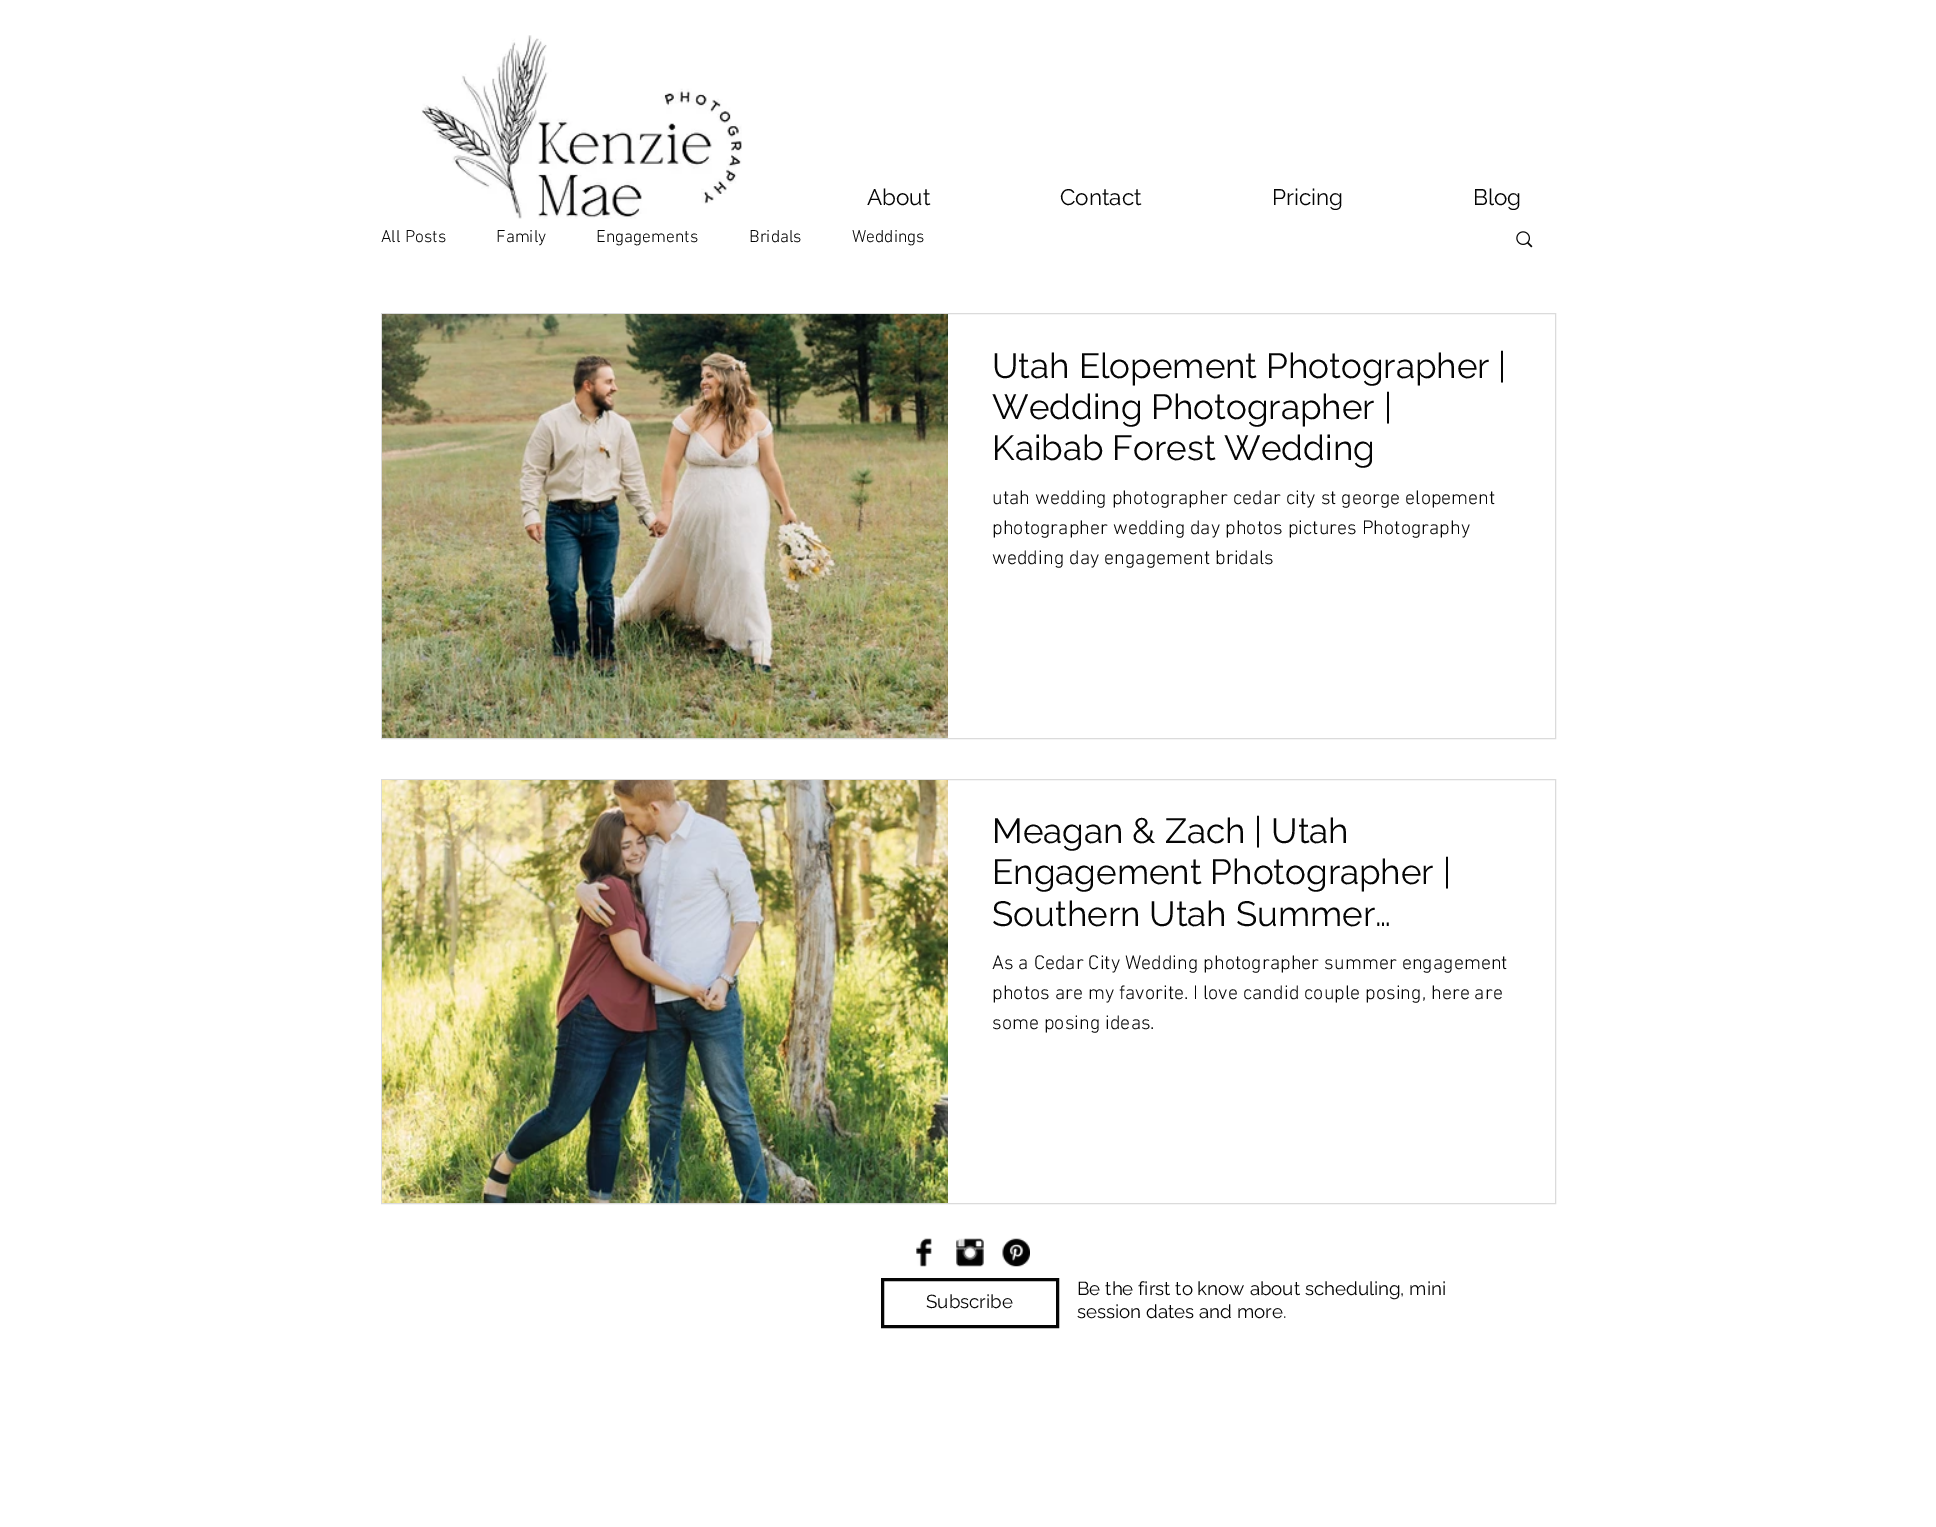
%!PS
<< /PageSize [1936 1527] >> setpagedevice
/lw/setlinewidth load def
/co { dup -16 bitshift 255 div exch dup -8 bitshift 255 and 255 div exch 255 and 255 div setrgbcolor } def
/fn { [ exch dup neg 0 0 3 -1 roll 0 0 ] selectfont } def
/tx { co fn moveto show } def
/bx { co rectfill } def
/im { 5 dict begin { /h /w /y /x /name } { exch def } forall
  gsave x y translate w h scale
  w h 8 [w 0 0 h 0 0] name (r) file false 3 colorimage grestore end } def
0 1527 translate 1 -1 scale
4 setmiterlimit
0 0 1936 1527 16#FFFFFF bx
(media/1.raw) 421 35 321 184 im
(media/2.raw) 1516 231 17 17 im
16#DBDBDB co
381.5 313.5 1174 425 rectstroke
(media/3.raw) 382 314 566 424 im
381.5 779.5 1174 424 rectstroke
(media/4.raw) 382 780 566 423 im
(media/5.raw) 916 1238 16 29 im
(media/6.raw) 956 1238 28 29 im
(media/7.raw) 1002 1238 28 29 im
16#050505 co
3 lw
882.5 1279.5 175 47 rectstroke
(About) 867 205 /Raleway-Regular 22.5 16#050505 tx
(Contact) 1060 205 /Raleway-Regular 22.5 16#050505 tx
(Pricing) 1272 205 /Raleway-Regular 22.5 16#050505 tx
(Blog) 1473 205 /Raleway-Regular 22.5 16#050505 tx
(All Posts) 381 242 /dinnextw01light-Light 17.5 16#050505 tx
(Family) 496 242 /dinnextw01light-Light 17.5 16#050505 tx
(Engagements) 596 242 /dinnextw01light-Light 17.5 16#050505 tx
(Bridals) 749 242 /dinnextw01light-Light 17.5 16#050505 tx
(Weddings) 852 242 /dinnextw01light-Light 17.5 16#050505 tx
(Utah Elopement Photographer |) 992 378 /Raleway-Regular 35 16#050505 tx
(Wedding Photographer |) 992 419 /Raleway-Regular 35 16#050505 tx
(Kaibab Forest Wedding) 992 460 /Raleway-Regular 35 16#050505 tx
(utah wedding photographer cedar city st george elopement) 992 504 /dinnextw01light-Light 20 16#050505 tx
(photographer wedding day photos pictures Photography) 992 534 /dinnextw01light-Light 20 16#050505 tx
(wedding day engagement bridals) 992 564 /dinnextw01light-Light 20 16#050505 tx
(Meagan & Zach | Utah) 992 843 /Raleway-Regular 35 16#050505 tx
(Engagement Photographer |) 992 884 /Raleway-Regular 35 16#050505 tx
(Southern Utah Summer…) 992 926 /Raleway-Regular 35 16#050505 tx
(As a Cedar City Wedding photographer summer engagement) 992 969 /dinnextw01light-Light 20 16#050505 tx
(photos are my favorite. I love candid couple posing, here are) 992 999 /dinnextw01light-Light 20 16#050505 tx
(some posing ideas.) 992 1029 /dinnextw01light-Light 20 16#050505 tx
(Subscribe) 926 1308 /Raleway-Regular 18.75 16#050505 tx
(Be the first to know about scheduling, mini) 1077 1295 /Raleway-Regular 18.75 16#050505 tx
(session dates and more.) 1077 1318 /Raleway-Regular 18.75 16#050505 tx
showpage
